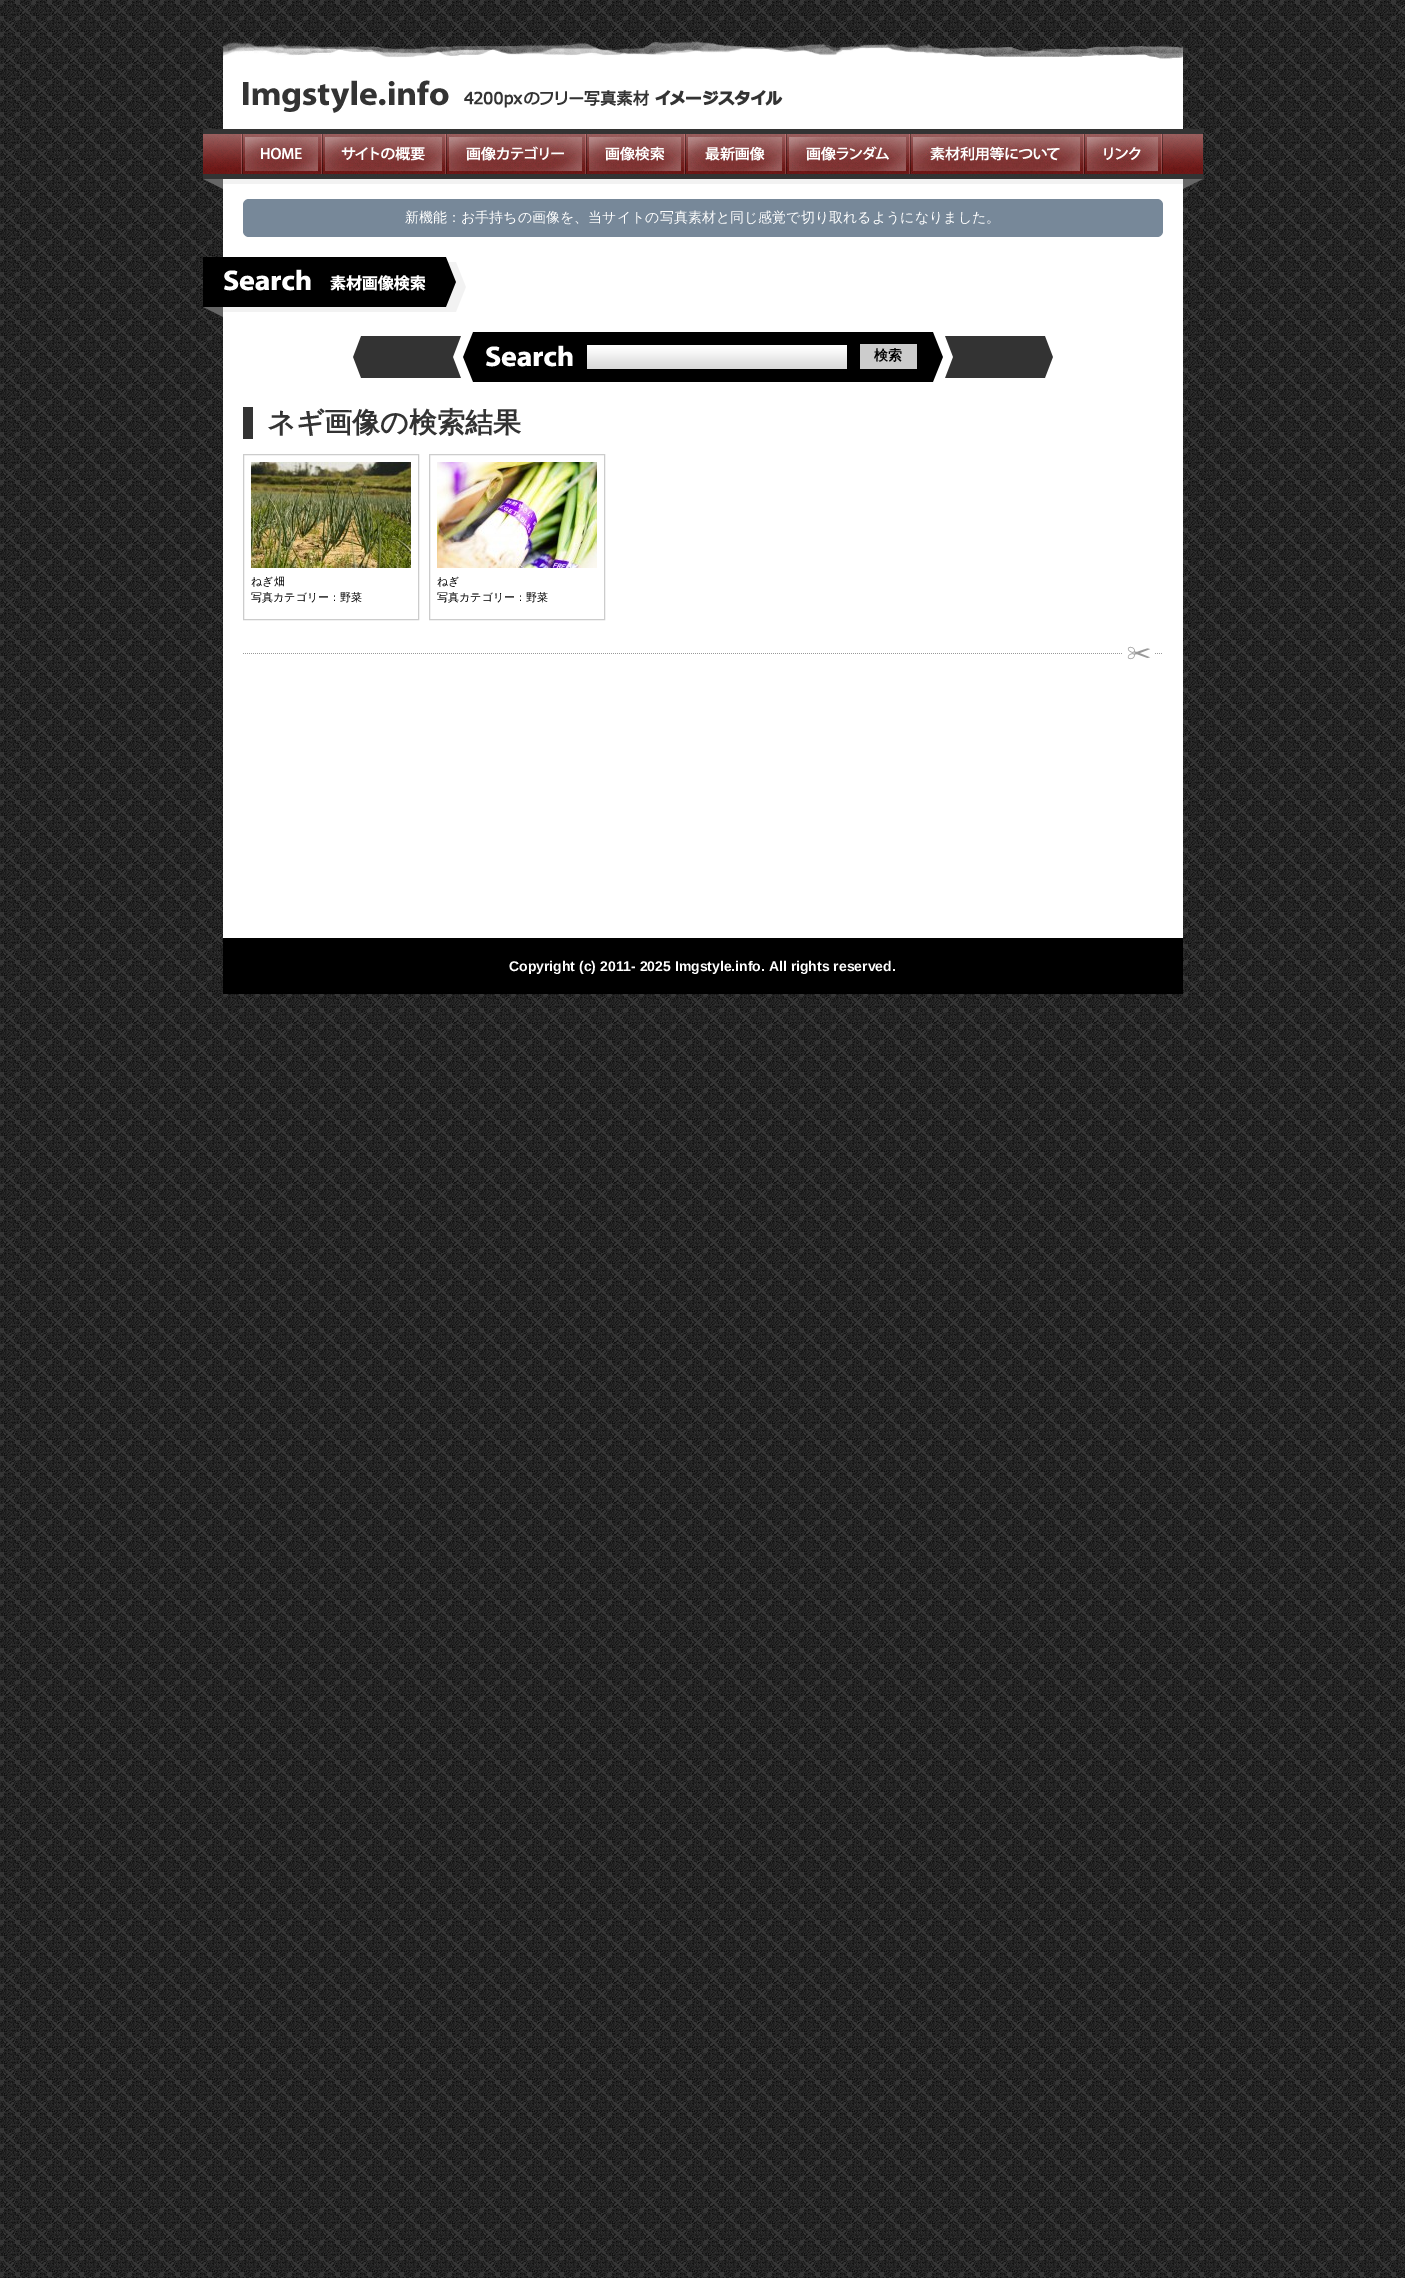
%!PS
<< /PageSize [1405 2278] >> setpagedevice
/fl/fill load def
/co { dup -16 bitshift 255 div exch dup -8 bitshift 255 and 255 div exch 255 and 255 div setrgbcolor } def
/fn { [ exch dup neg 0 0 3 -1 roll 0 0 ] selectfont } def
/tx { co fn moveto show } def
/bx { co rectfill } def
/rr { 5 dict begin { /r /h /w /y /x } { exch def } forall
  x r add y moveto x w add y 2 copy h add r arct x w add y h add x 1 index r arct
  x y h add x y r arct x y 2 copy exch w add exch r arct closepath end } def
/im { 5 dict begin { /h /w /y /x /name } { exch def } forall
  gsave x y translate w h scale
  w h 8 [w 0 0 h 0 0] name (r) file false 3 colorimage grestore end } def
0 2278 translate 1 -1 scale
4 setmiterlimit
0 0 1405 2278 16#FFFFFF bx
(media/1.raw) 0 0 1405 2278 im
223 60 960 878 16#FFFFFF bx
(media/2.raw) 223 41 960 19 im
(media/3.raw) 243 80 540 33 im
(media/4.raw) 203 129 1000 60 im
(media/5.raw) 241 133 80 43 im
(media/6.raw) 321 133 124 44 im
(media/7.raw) 445 129 140 45 im
(media/8.raw) 585 129 99 48 im
(media/9.raw) 684 133 101 41 im
(media/10.raw) 785 134 124 43 im
(media/11.raw) 909 132 174 45 im
(media/12.raw) 1083 129 81 48 im
16#778899 co
243 199 920 38 6 rr fl
(media/13.raw) 203 257 263 60 im
(media/14.raw) 353 332 700 50 im
860 344 57 25 16#CCCCCC bx
243 407 10 32 16#333333 bx
16#CCCCCC co
243.5 454.5 175 165 rectstroke
(media/15.raw) 251 462 160 106 im
429.5 454.5 175 165 rectstroke
(media/16.raw) 437 462 160 106 im
(media/17.raw) 243 646 919 14 im
223 938 960 56 16#000000 bx
(新機能：お手持ちの画像を、当サイトの写真素材と同じ感覚で切り取れるようになりました。) 405 222 /WenQuanYiZenHei-Medium 14 16#FFFFFF tx
(検索) 874 360 /WenQuanYiZenHei-Bold 14 16#000000 tx
(ネギ画像の検索結果) 267 432 /WenQuanYiZenHei-Bold 28 16#333333 tx
(ねぎ畑) 251 585 /WenQuanYiZenHei-Medium 11 16#000000 tx
(写真カテゴリー：野菜) 251 601 /WenQuanYiZenHei-Medium 11 16#000000 tx
(ねぎ) 437 585 /WenQuanYiZenHei-Medium 11 16#000000 tx
(写真カテゴリー：野菜) 437 601 /WenQuanYiZenHei-Medium 11 16#000000 tx
(Copyright \(c\) 2011- 2025 Imgstyle.info. All rights reserved.) 509 971 /LiberationSans-Bold 14 16#FFFFFF tx
showpage
